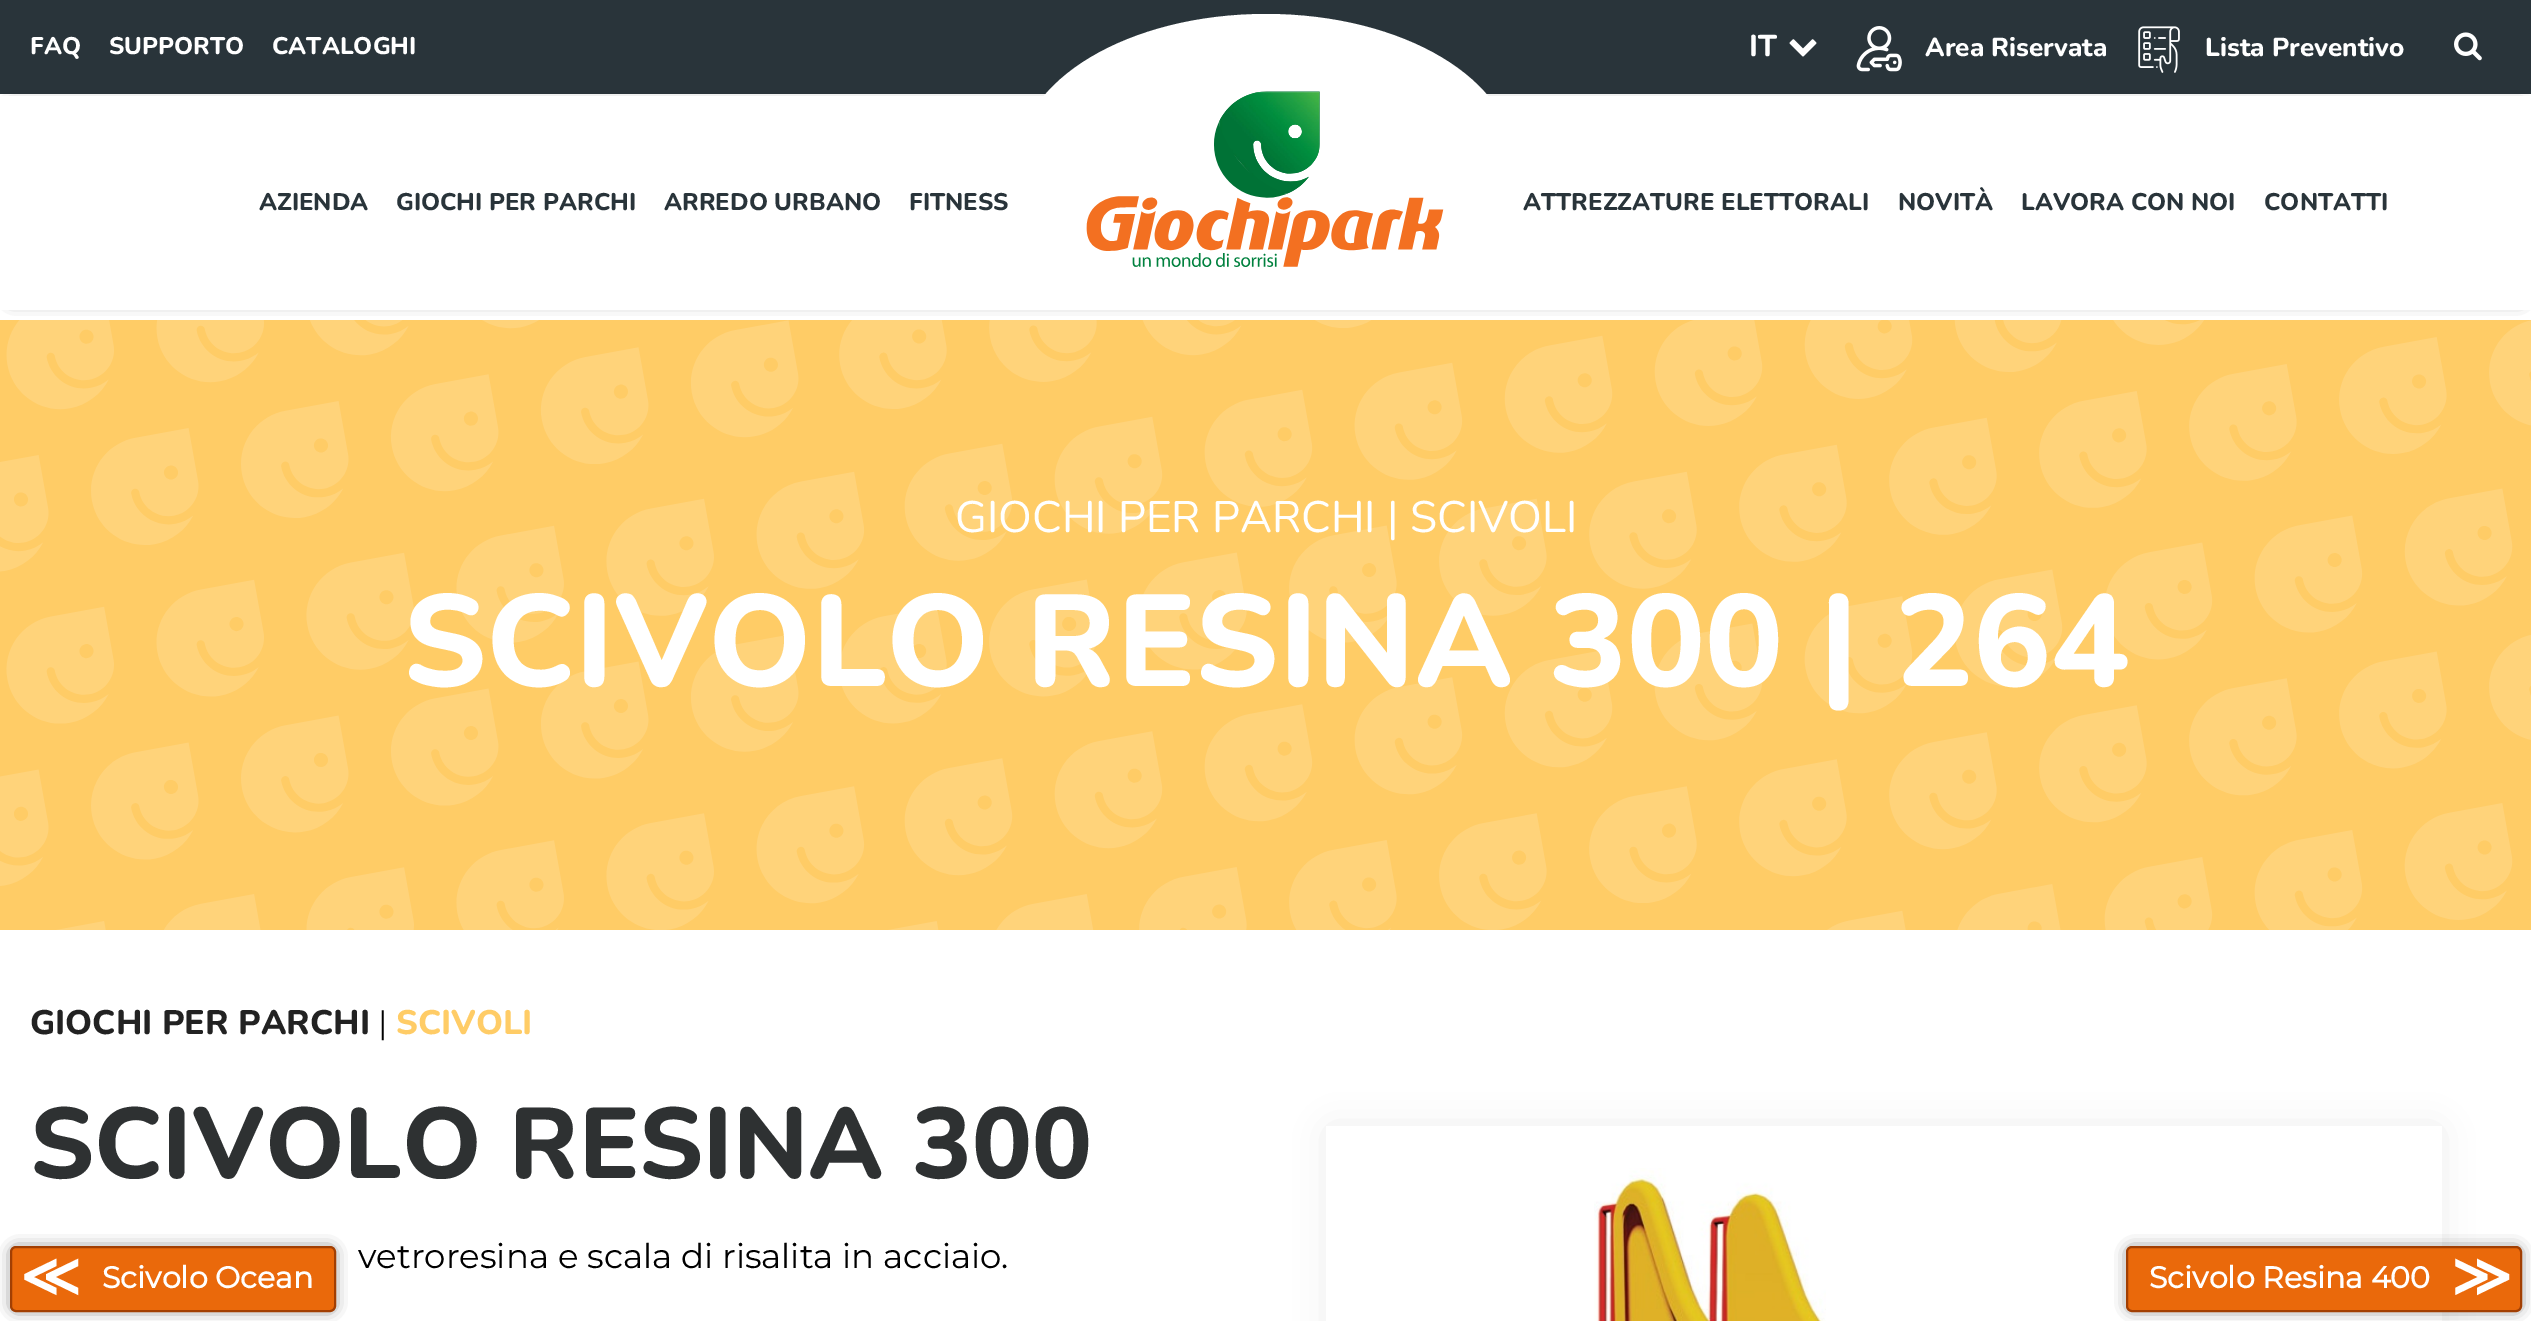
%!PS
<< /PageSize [2531 1321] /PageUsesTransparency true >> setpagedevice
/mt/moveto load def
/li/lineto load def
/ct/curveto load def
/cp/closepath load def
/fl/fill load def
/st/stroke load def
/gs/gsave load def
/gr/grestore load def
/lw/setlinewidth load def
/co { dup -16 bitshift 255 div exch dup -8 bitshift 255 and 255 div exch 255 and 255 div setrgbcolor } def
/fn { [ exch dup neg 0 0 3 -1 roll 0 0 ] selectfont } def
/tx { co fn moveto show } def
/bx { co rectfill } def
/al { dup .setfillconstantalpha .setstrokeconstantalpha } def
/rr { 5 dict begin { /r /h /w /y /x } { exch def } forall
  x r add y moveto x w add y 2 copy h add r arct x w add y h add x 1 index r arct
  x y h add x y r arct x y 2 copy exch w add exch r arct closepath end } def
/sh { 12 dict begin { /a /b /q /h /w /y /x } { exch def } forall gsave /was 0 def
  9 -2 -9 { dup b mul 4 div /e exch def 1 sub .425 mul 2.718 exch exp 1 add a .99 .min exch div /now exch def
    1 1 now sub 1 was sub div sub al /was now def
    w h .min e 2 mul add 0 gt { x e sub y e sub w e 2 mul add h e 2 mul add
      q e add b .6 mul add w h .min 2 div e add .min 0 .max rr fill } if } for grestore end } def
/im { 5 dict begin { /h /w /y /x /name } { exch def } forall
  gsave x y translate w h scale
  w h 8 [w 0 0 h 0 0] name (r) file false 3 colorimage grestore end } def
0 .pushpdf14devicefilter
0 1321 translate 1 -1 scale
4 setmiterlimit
0 0 2531 1321 16#FFFFFF bx
0 0 2531 94 16#29343A bx
(media/1.raw) 1789 39 28 18 im
(media/2.raw) 1856 26 46 46 im
(media/3.raw) 2138 26 42 47 im
(media/4.raw) 2454 32 28 29 im
0 320 2531 610 16#FFCC66 bx
(media/6.raw) 0 320 2531 610 im
gs
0 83 mt 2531 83 li 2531 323 li 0 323 li cp 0 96 mt 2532 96 li 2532 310 li 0 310 li cp eoclip newpath
16#222222 co
12 108 2508 190 0 8 1 sh
gr
16#FFFFFF co
1266 14 mt 1403 14 1514 80 1514 162 ct 1514 310 li 1018 310 li 1018 162 li 1018 80 1129 14 1266 14 ct cp fl
(media/5.raw) 1086 91 358 176 im
gs
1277 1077 mt 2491 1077 li 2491 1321 li 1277 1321 li cp 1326 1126 mt 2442 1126 li 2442 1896 li 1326 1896 li cp eoclip newpath
16#E3E3E3 co
1332 1132 1104 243 0 18 1 sh
gr
(media/7.raw) 1594 1168 232 153 im
16#000000 co
16 1252 314 54 0 8 1 sh
16#EA690B co
11 1247 324 64 5 rr gs fl gr
16#A23F03 co
2 lw
st
16#000000 co
2132 1252 384 54 0 8 1 sh
16#EA690B co
2127 1247 394 64 5 rr gs fl gr
16#A23F03 co
st
(FAQ) 30 54 /Nunito-ExtraBold 24 16#FFFFFF tx
(SUPPORTO) 109 54 /Nunito-ExtraBold 24 16#FFFFFF tx
(CATALOGHI) 272 54 /Nunito-ExtraBold 24 16#FFFFFF tx
(IT) 1749 56 /Nunito-ExtraBold 30 16#FFFFFF tx
(Area Riservata) 1925 56 /Nunito-ExtraBold 26 16#FFFFFF tx
(Lista Preventivo) 2205 56 /Nunito-ExtraBold 26 16#FFFFFF tx
(AZIENDA) 259 210 /Nunito-ExtraBold 24 16#29343A tx
(GIOCHI PER PARCHI) 396 210 /Nunito-ExtraBold 24 16#29343A tx
(ARREDO URBANO) 664 210 /Nunito-ExtraBold 24 16#29343A tx
(FITNESS) 909 210 /Nunito-ExtraBold 24 16#29343A tx
(ATTREZZATURE ELETTORALI) 1523 210 /Nunito-ExtraBold 24 16#29343A tx
(NOVITÀ) 1898 210 /Nunito-ExtraBold 24 16#29343A tx
(LAVORA CON NOI) 2021 210 /Nunito-ExtraBold 24 16#29343A tx
(CONTATTI) 2264 210 /Nunito-ExtraBold 24 16#29343A tx
(GIOCHI PER PARCHI | SCIVOLI) 955 532 /Nunito-Regular 44 16#FFFFFF tx
(SCIVOLO RESINA 300 | 264) 403 686 /Nunito-ExtraBold 130 16#FFFFFF tx
(GIOCHI PER PARCHI) 30 1034 /Nunito-ExtraBold 34 16#222222 tx
(|) 378 1034 /Montserrat-Regular 32 16#000000 tx
(SCIVOLI) 396 1034 /Nunito-ExtraBold 34 16#FFCC66 tx
(SCIVOLO RESINA 300) 30 1178 /Nunito-ExtraBold 100 16#2E3132 tx
(vetroresina e scala di risalita in acciaio.) 358 1268 /Montserrat-Regular 34 16#000000 tx
(≪) 20 1296 /DejaVuSans-Bold 58 16#FFFFFF tx
(Scivolo Ocean) 102 1288 /Montserrat-Bold 30 16#FFFFFF tx
(Scivolo Resina 400) 2149 1288 /Montserrat-Bold 30 16#FFFFFF tx
(≫) 2451 1296 /DejaVuSans-Bold 58 16#FFFFFF tx
.poppdf14devicefilter showpage
